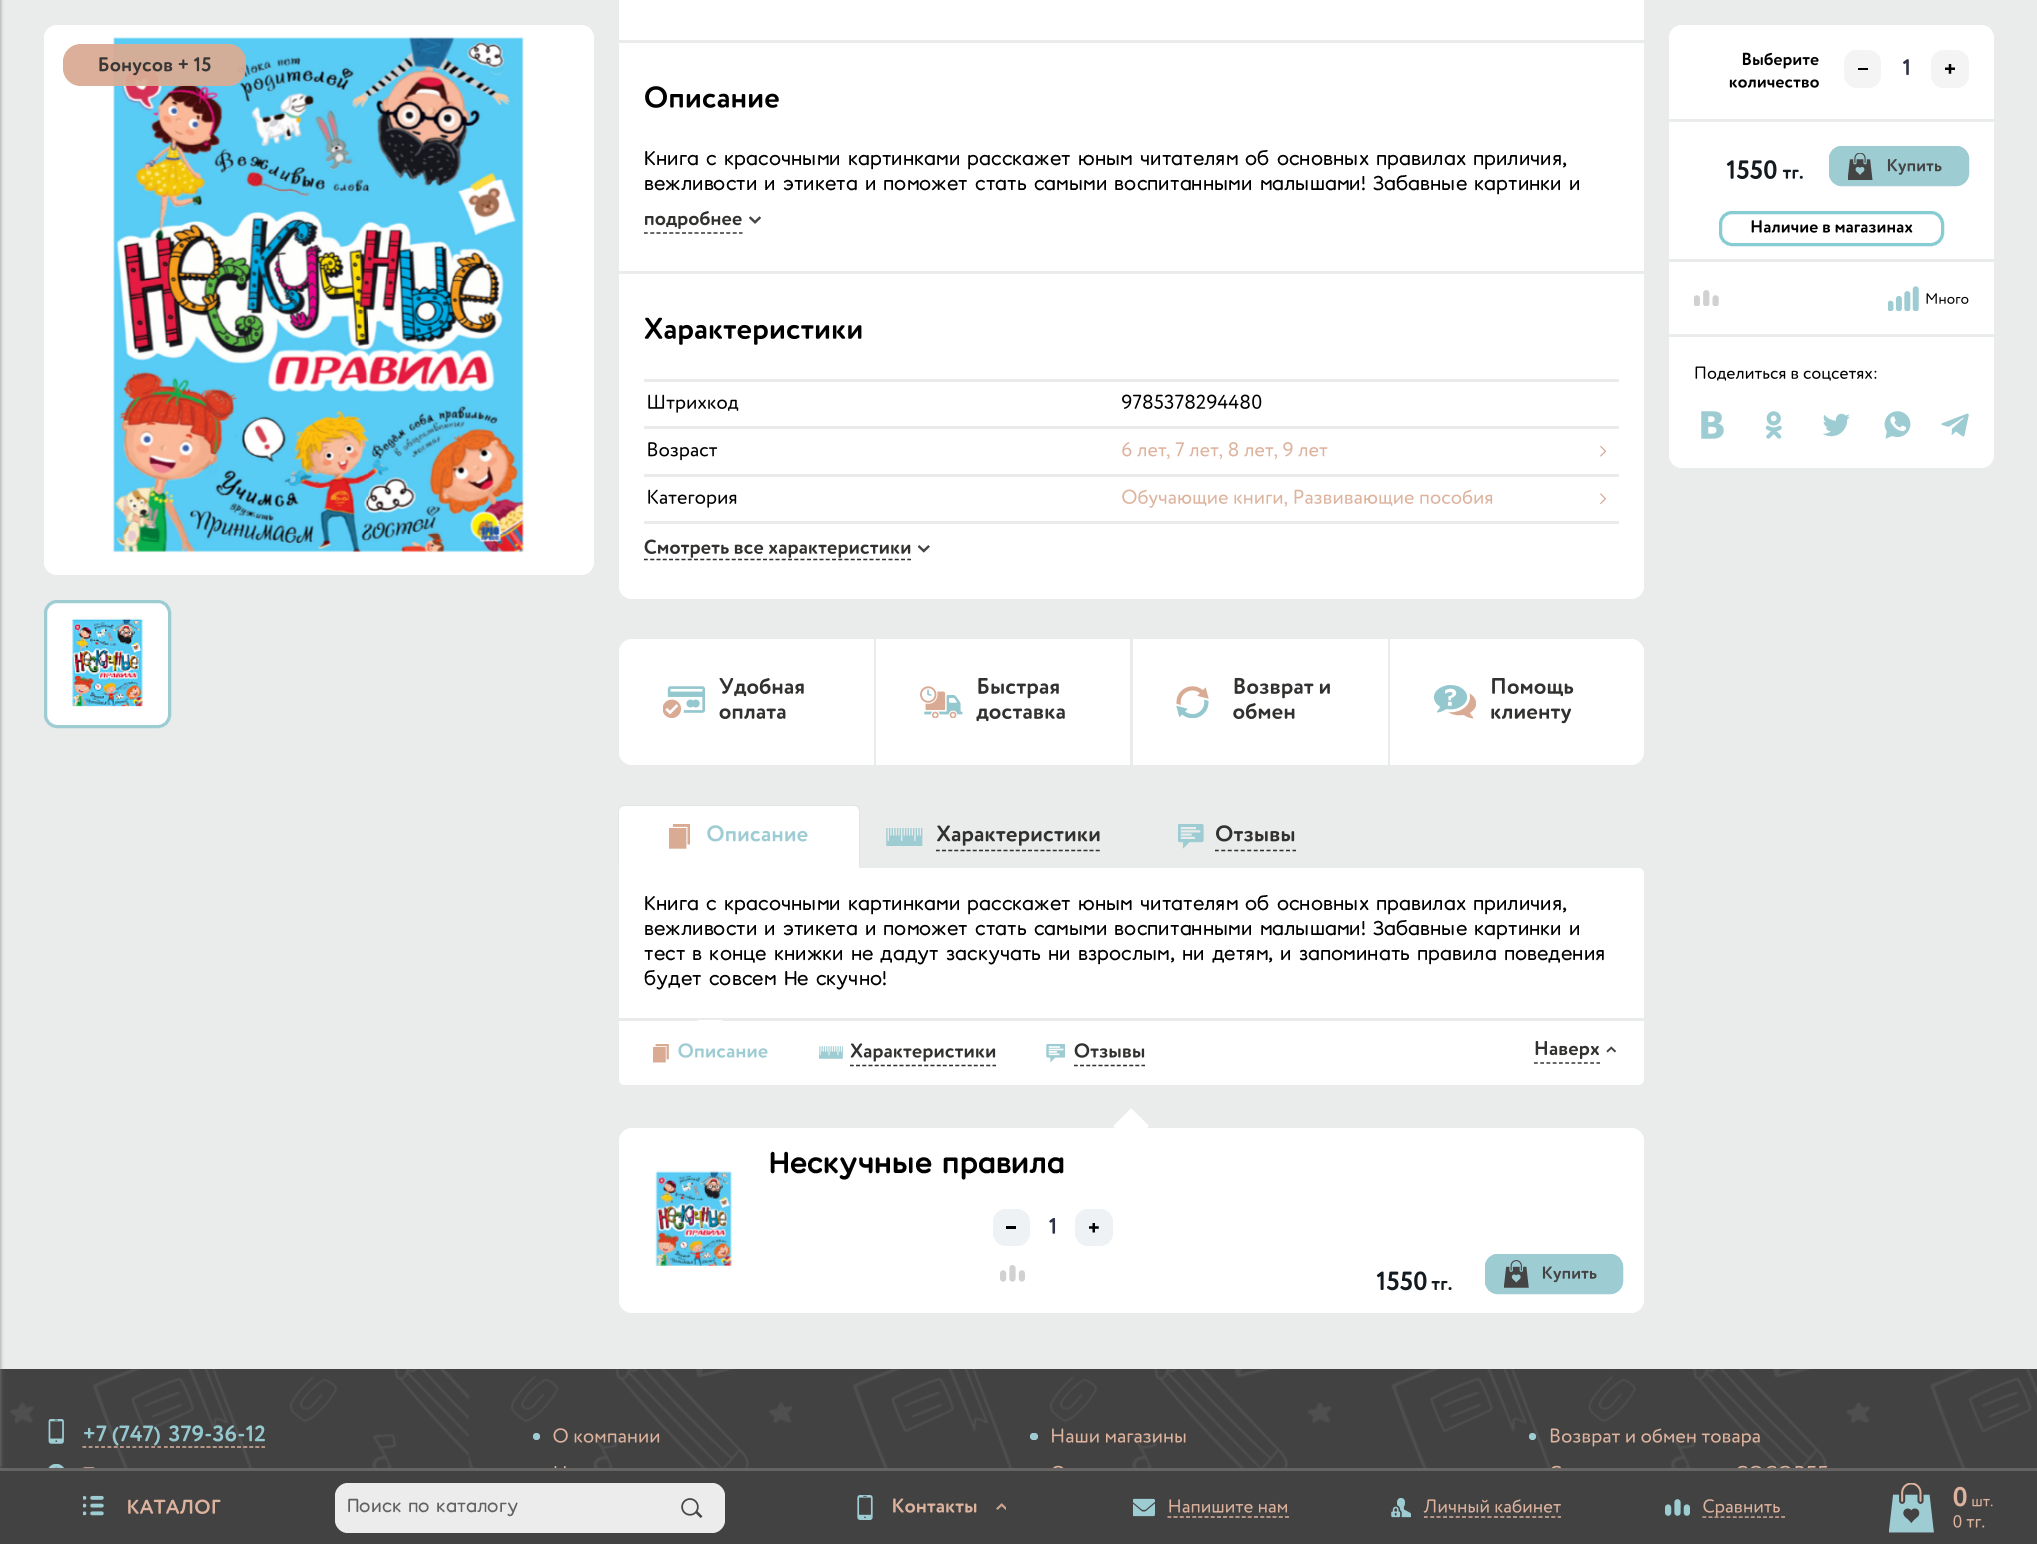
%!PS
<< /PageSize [2037 1544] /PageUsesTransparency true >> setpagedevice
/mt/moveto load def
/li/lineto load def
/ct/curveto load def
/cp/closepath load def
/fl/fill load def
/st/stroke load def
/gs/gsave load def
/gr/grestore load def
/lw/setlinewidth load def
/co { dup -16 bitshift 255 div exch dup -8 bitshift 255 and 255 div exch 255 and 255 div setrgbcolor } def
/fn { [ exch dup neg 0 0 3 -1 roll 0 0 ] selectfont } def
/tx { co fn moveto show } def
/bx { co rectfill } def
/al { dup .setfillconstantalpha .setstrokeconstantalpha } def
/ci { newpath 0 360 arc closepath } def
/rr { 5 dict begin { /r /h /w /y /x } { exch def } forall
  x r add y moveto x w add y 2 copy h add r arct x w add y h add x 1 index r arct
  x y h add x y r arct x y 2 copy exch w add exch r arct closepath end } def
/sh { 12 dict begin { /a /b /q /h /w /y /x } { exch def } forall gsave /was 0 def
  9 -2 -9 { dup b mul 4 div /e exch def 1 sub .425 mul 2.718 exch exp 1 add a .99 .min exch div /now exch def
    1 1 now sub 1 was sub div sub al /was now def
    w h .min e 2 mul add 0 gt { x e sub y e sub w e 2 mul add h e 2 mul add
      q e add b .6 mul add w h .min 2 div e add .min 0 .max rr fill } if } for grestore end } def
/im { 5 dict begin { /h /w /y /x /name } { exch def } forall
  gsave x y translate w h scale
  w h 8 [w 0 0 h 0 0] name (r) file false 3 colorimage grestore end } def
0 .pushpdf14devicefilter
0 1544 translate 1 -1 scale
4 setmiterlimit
0 0 2037 1544 16#EAECEB bx
0 1369 2037 99 16#424242 bx
0 1471 2037 73 16#424242 bx
0 1468 2037 3 16#656463 bx
16#808080 co
-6 0 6 1466 0 2 1 sh
16#FFFFFF co
44 25 550 550 13 rr fl
(media/1.raw) 113 36 411 517 im
0.95 al
16#D9AB93 co
63 44 183 42 18 rr fl
1 al
(media/2.raw) 99 57 112 19 im
16#FFFFFF co
45.5 601.5 124 125 11.5 rr gs fl gr
16#9ECCD3 co
3 lw
st
(media/3.raw) 72 617 71 90 im
16#FFFFFF co
619 -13 1025 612 13 rr fl
619 40 1025 3 16#EAECEB bx
(media/4.raw) 645 86 134 22 im
619 271 1025 3 16#EAECEB bx
16#313130 co
1.2 lw
[3.75 2.59] 0 setdash
644 233 mt 742.5 233 li st
(media/5.raw) 645 211 97 18 im
(media/6.raw) 749 216 12 8 im
(media/7.raw) 644 317 218 28 im
644 379 975 3 16#EAECEB bx
(media/8.raw) 648 394 91 19 im
(media/9.raw) 1122 394 140 15 im
644 426 975 3 16#EAECEB bx
(media/10.raw) 648 442 70 19 im
(media/11.raw) 1122 442 45 15 im
(media/12.raw) 1167 454 3 5 im
(media/13.raw) 1175 442 44 15 im
(media/14.raw) 1219 454 4 5 im
(media/15.raw) 1228 442 46 15 im
(media/14.raw) 1274 454 4 5 im
(media/16.raw) 1283 442 45 15 im
(media/17.raw) 1600 446 6 11 im
644 474 975 3 16#EAECEB bx
644 521 975 3 16#EAECEB bx
(media/18.raw) 648 489 89 19 im
(media/19.raw) 1122 489 161 19 im
(media/20.raw) 1284 501 4 6 im
(media/21.raw) 1294 489 199 17 im
(media/22.raw) 1600 493 6 11 im
(media/23.raw) 644 539 267 19 im
(media/24.raw) 918 545 12 8 im
16#313130 co
[3.75 2.52] 0 setdash
644 559.5 mt 911 559.5 li st
16#FFFFFF co
1669 25 325 443 13 rr fl
1669 119 325 3 16#EAECEB bx
(media/25.raw) 1742 52 77 17 im
(media/26.raw) 1729 79 90 9 im
16#F4F4F4 co
1844 50 37 38 13 rr fl
1858 68 10 2 16#000000 bx
(media/27.raw) 1903 59 6 16 im
16#F4F4F4 co
1931 50 38 38 13 rr fl
(media/28.raw) 1945 64 10 10 im
(media/29.raw) 1726 160 51 19 im
(media/30.raw) 1782 169 21 10 im
16#9ECCD3 co
1829 146 140 40 13 rr fl
(media/31.raw) 1848 153 25 27 im
3 lw
[] 0 setdash
1830.5 147.5 137 37 11.5 rr st
(media/32.raw) 1887 159 55 16 im
16#86CCD3 co
1720.5 212.5 222 32 11.5 rr st
(media/33.raw) 1751 220 162 13 im
1669 259 325 3 16#EAECEB bx
1669 334 325 3 16#EAECEB bx
(media/34.raw) 1694 290 25 16 im
(media/35.raw) 1888 286 31 25 im
(media/36.raw) 1926 293 43 11 im
(media/37.raw) 1695 366 182 15 im
(media/38.raw) 1701 411 23 28 im
(media/39.raw) 1765 411 17 28 im
(media/40.raw) 1823 413 27 24 im
(media/41.raw) 1884 411 27 28 im
(media/42.raw) 1941 413 28 24 im
16#FFFFFF co
632 639 mt 874 639 li 874 765 li 632 765 li 625 765 619 759 619 752 ct 619 652 li 619 645 625 639 632 639 ct cp fl
(media/43.raw) 663 686 42 32 im
(media/44.raw) 719 678 85 19 im
(media/45.raw) 719 708 67 11 im
876 639 254 126 16#FFFFFF bx
(media/46.raw) 920 686 43 32 im
(media/47.raw) 978 678 81 21 im
(media/48.raw) 976 708 89 14 im
1133 639 255 126 16#FFFFFF bx
(media/49.raw) 1176 686 33 32 im
(media/50.raw) 1234 677 96 22 im
(media/51.raw) 1233 703 62 16 im
1390 639 mt 1631 639 li 1638 639 1644 645 1644 652 ct 1644 752 li 1644 759 1638 765 1631 765 ct 1390 765 li cp fl
(media/52.raw) 1434 685 42 34 im
(media/53.raw) 1492 678 82 19 im
(media/54.raw) 1491 708 81 16 im
619 868 mt 1638 868 li 1641.5 868 1644 870.5 1644 874 ct 1644 1018 li 619 1018 li cp fl
619 866 240 2 16#FFFFFF bx
624 806 mt 854 806 li 857 806 859 808 859 811 ct 859 866 li 619 866 li 619 811 li 619 808 621 806 624 806 ct cp fl
(media/55.raw) 669 824 21 25 im
16#E4E4E4 co
624 805 mt 854 805 li 857 805 860 808 860 811 ct 860 866 li 618 866 li 618 811 li 618 808 620 805 624 805 ct cp 624 806 mt 854 806 li 857 806 859 808 859 811 ct 859 866 li 619 866 li 619 811 li 619 808 621 806 624 806 ct cp eofill
(media/56.raw) 707 825 101 17 im
(media/57.raw) 886 828 37 18 im
16#313130 co
1.2 lw
[3.75 2.4] 0 setdash
936 850.5 mt 1100 850.5 li st
(media/58.raw) 937 825 163 21 im
(media/59.raw) 1178 824 26 25 im
[3.75 2.71] 0 setdash
1215 850.5 mt 1296 850.5 li st
(media/60.raw) 1216 825 79 17 im
16#FFFFFF co
619 1018 mt 1644 1018 li 1644 1079 li 1644 1082.5 1641.5 1085 1638 1085 ct 625 1085 li 621.5 1085 619 1082.5 619 1079 ct cp fl
619 1018 1025 3 16#EAECEB bx
(media/61.raw) 653 1044 16 19 im
16#FFFFFF co
697.5 1020 mt 722.5 1020 li 710 1032.5 li cp fl
(media/62.raw) 678 1043 90 15 im
(media/63.raw) 819 1046 24 13 im
16#313130 co
[3.75 2.45] 0 setdash
850 1065.5 mt 996 1065.5 li st
(media/64.raw) 850 1043 146 19 im
(media/65.raw) 1046 1044 19 19 im
[3.75 2.39] 0 setdash
1074 1065.5 mt 1145 1065.5 li st
(media/66.raw) 1074 1043 71 15 im
[3.75 2.5] 0 setdash
1534 1063 mt 1600 1063 li st
(media/67.raw) 1535 1041 64 18 im
(media/68.raw) 1606 1046 10 7 im
16#FFFFFF co
619 1128 1025 185 13 rr fl
1131 1108.5 mt 1149 1126 li 1131 1144 li 1113.5 1126 li cp fl
(media/69.raw) 655 1170 77 96 im
16#EFF2F4 co
993 1209 37 37 13 rr fl
1006 1226 10 3 16#000000 bx
(media/70.raw) 1049 1217 7 17 im
16#EFF2F4 co
1075 1209 38 37 13 rr fl
(media/71.raw) 1089 1223 10 10 im
(media/72.raw) 1000 1265 25 17 im
(media/73.raw) 1376 1271 51 20 im
(media/74.raw) 1431 1281 21 10 im
16#9ECCD3 co
1485 1254 138 40 13 rr fl
(media/75.raw) 1504 1260 25 28 im
3 lw
[] 0 setdash
1486.5 1255.5 135 37 11.5 rr st
(media/76.raw) 1542 1266 55 17 im
(media/77.raw) 10 1369 2027 99 im
(media/78.raw) 48 1419 16 25 im
(media/79.raw) 84 1425 76 21 im
16#DDB39E co
1.2 lw
[3.75 2.5] 0 setdash
82.5 1447 mt 161 1447 li st
(media/80.raw) 169 1425 96 17 im
[3.75 2.35] 0 setdash
164 1447 mt 265 1447 li st
(media/81.raw) 48 1464 16 4 im
(media/82.raw) 83 1467 12 1 im
16#9ECCD3 co
536.5 1436.5 3.5 ci fl
(media/83.raw) 553 1428 107 15 im
1030 1433 8 7 3.5 rr fl
(media/84.raw) 1052 1428 134 15 im
1532.5 1436.5 3.5 ci fl
(media/85.raw) 1550 1428 210 19 im
(media/86.raw) 554 1466 12 2 im
(media/87.raw) 1053 1465 11 3 im
(media/88.raw) 1551 1465 277 3 im
(media/89.raw) 83 1495 21 21 im
(media/90.raw) 128 1499 93 15 im
16#ECECEC co
348 1483 mt 650 1483 li 650 1533 li 348 1533 li 341 1533 335 1527 335 1520 ct 335 1496 li 335 1489 341 1483 348 1483 ct cp fl
650 1483 mt 712 1483 li 719 1483 725 1489 725 1496 ct 725 1520 li 725 1527 719 1533 712 1533 ct 650 1533 li cp fl
(media/91.raw) 681 1498 22 20 im
(media/92.raw) 857 1495 16 25 im
(media/93.raw) 893 1498 84 15 im
(media/94.raw) 996 1503 10 7 im
(media/95.raw) 1133 1498 22 19 im
16#DDB39E co
[3.75 2.44] 0 setdash
1167.5 1517 mt 1289 1517 li st
(media/96.raw) 1169 1499 118 14 im
(media/97.raw) 1391 1498 20 20 im
[3.75 2.62] 0 setdash
1424 1517 mt 1561 1517 li st
(media/98.raw) 1423 1499 138 14 im
(media/99.raw) 1665 1499 25 17 im
[3.75 2.31] 0 setdash
1702.5 1517 mt 1785 1517 li st
(media/100.raw) 1703 1499 77 18 im
(media/101.raw) 1889 1483 45 50 im
(media/102.raw) 1953 1486 14 21 im
(media/103.raw) 1972 1498 21 9 im
(media/104.raw) 1953 1515 9 13 im
(media/105.raw) 1966 1519 19 9 im
(Книга с красочными картинками расскажет юным читателям об основных правилах приличия,) 644 165 /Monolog-Medium 20 16#000000 tx
(вежливости и этикета и поможет стать самыми воспитанными малышами! Забавные картинки и) 644 190 /Monolog-Medium 20 16#000000 tx
(Книга с красочными картинками расскажет юным читателям об основных правилах приличия,) 644 910 /Monolog-Medium 20 16#000000 tx
(вежливости и этикета и поможет стать самыми воспитанными малышами! Забавные картинки и) 644 935 /Monolog-Medium 20 16#000000 tx
(тест в конце книжки не дадут заскучать ни взрослым, ни детям, и запоминать правила поведения) 644 960 /Monolog-Medium 20 16#000000 tx
(будет совсем Не скучно!) 644 985 /Monolog-Medium 20 16#000000 tx
(Нескучные правила) 769 1173 /Monolog-Bold 30 16#000000 tx
(Поиск по каталогу) 347 1512 /Monolog-Medium 18.75 16#626161 tx
.poppdf14devicefilter showpage
